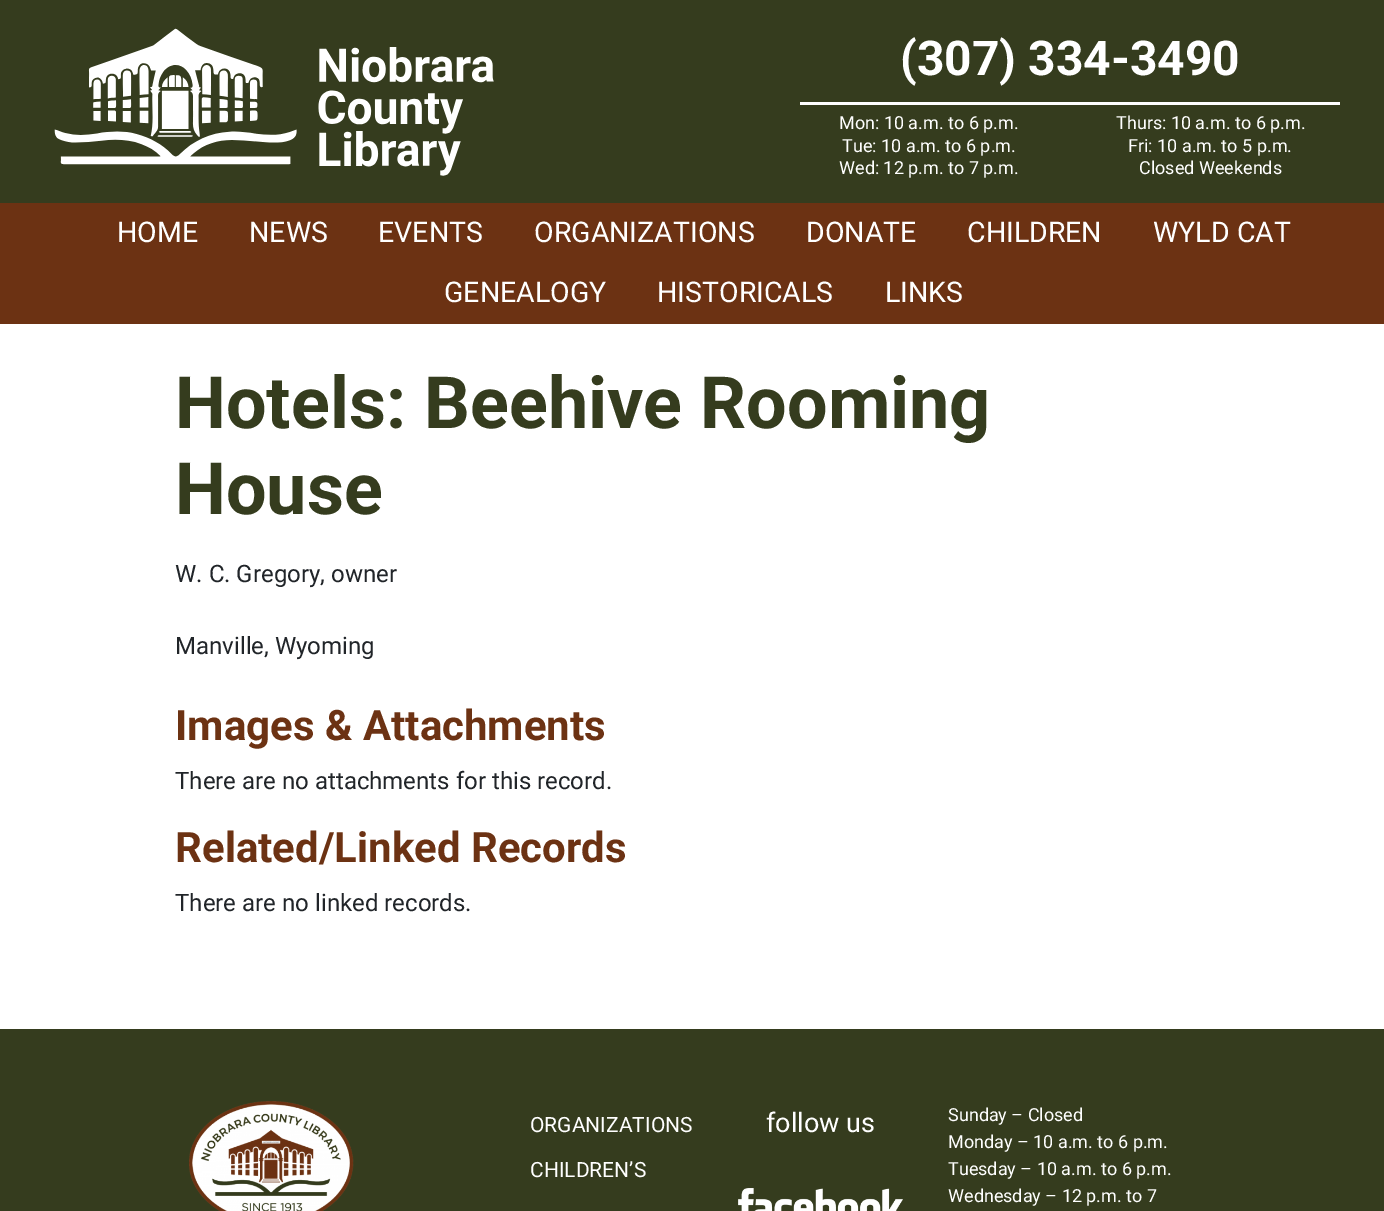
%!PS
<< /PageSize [1384 1211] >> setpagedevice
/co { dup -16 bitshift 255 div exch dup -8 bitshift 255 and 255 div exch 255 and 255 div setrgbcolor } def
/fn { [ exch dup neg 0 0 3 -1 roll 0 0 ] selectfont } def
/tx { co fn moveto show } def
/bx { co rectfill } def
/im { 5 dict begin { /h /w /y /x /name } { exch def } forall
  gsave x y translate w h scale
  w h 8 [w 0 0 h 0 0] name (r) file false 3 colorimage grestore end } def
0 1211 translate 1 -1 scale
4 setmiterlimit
0 0 1384 1211 16#FFFFFF bx
0 0 1384 203 16#353C1E bx
(media/1.raw) 54 28 440 148 im
800 102 540 3 16#FFFFFF bx
0 203 1384 121 16#6C3213 bx
0 1029 1384 182 16#353C1E bx
(media/2.raw) 189 1101 165 110 im
(media/3.raw) 738 1188 165 23 im
(\(307\) 334-3490) 900 75 /Roboto-Bold 48 16#FFFFFF tx
(Mon: 10 a.m. to 6 p.m.) 839 129 /Roboto-Regular 18 16#FFFFFF tx
(Thurs: 10 a.m. to 6 p.m.) 1116 129 /Roboto-Regular 18 16#FFFFFF tx
(Tue: 10 a.m. to 6 p.m.) 842 152 /Roboto-Regular 18 16#FFFFFF tx
(Fri: 10 a.m. to 5 p.m.) 1128 152 /Roboto-Regular 18 16#FFFFFF tx
(Wed: 12 p.m. to 7 p.m.) 839 174 /Roboto-Regular 18 16#FFFFFF tx
(Closed Weekends) 1139 174 /Roboto-Regular 18 16#FFFFFF tx
(HOME) 117 242 /Roboto-Regular 28.5 16#FFFFFF tx
(NEWS) 249 242 /Roboto-Regular 28.5 16#FFFFFF tx
(EVENTS) 378 242 /Roboto-Regular 28.5 16#FFFFFF tx
(ORGANIZATIONS) 534 242 /Roboto-Regular 28.5 16#FFFFFF tx
(DONATE) 806 242 /Roboto-Regular 28.5 16#FFFFFF tx
(CHILDREN) 967 242 /Roboto-Regular 28.5 16#FFFFFF tx
(WYLD CAT) 1153 242 /Roboto-Regular 28.5 16#FFFFFF tx
(GENEALOGY) 444 302 /Roboto-Regular 28.5 16#FFFFFF tx
(HISTORICALS) 657 302 /Roboto-Regular 28.5 16#FFFFFF tx
(LINKS) 885 302 /Roboto-Regular 28.5 16#FFFFFF tx
(Hotels: Beehive Rooming) 175 428 /Roboto-Bold 72 16#353C1E tx
(House) 175 514 /Roboto-Bold 72 16#353C1E tx
(W. C. Gregory, owner) 175 582 /Roboto-Regular 24 16#212529 tx
(Manville, Wyoming) 175 654 /Roboto-Regular 24 16#212529 tx
(Images & Attachments) 175 740 /Roboto-Bold 42 16#6C3213 tx
(There are no attachments for this record.) 175 789 /Roboto-Regular 24 16#212529 tx
(Related/Linked Records) 175 862 /Roboto-Bold 42 16#6C3213 tx
(There are no linked records.) 175 911 /Roboto-Regular 24 16#212529 tx
(ORGANIZATIONS) 530 1132 /Roboto-Regular 21 16#FFFFFF tx
(CHILDREN’S) 530 1177 /Roboto-Regular 21 16#FFFFFF tx
(follow us) 766 1132 /Roboto-Regular 27 16#FFFFFF tx
(Sunday – Closed) 948 1121 /Roboto-Regular 18 16#FFFFFF tx
(Monday – 10 a.m. to 6 p.m.) 948 1148 /Roboto-Regular 18 16#FFFFFF tx
(Tuesday – 10 a.m. to 6 p.m.) 948 1175 /Roboto-Regular 18 16#FFFFFF tx
(Wednesday – 12 p.m. to 7) 948 1202 /Roboto-Regular 18 16#FFFFFF tx
showpage
